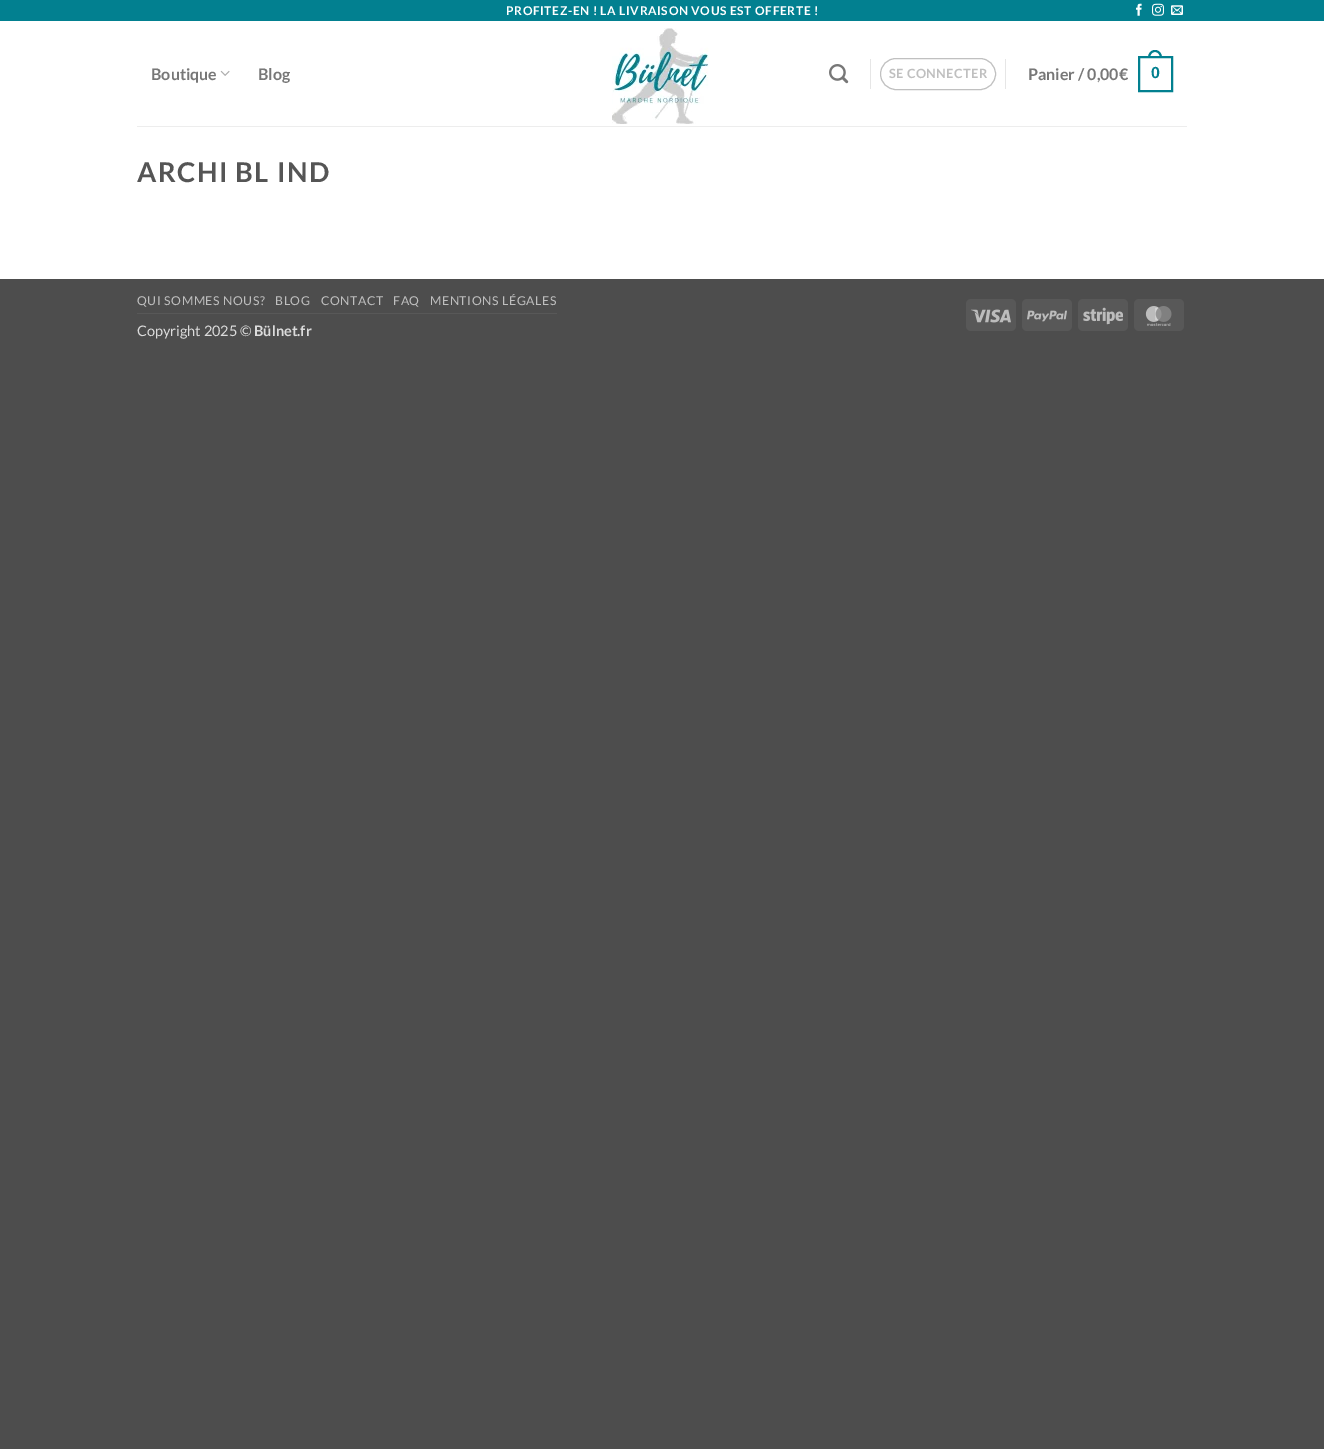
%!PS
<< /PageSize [1324 1449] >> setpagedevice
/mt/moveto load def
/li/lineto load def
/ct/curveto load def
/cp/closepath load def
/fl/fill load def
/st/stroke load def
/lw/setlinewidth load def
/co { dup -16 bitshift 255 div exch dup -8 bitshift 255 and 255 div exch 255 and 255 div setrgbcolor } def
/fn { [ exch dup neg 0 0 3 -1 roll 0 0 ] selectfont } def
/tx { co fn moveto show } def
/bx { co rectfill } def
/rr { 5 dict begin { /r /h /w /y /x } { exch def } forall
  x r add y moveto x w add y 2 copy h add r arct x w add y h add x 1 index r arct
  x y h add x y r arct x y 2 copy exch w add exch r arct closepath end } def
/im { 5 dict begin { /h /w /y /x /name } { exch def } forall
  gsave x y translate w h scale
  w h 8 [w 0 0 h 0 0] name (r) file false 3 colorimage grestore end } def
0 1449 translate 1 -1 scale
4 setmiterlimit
0 0 1324 1449 16#4D4D4D bx
0 21 1324 258 16#FFFFFF bx
0 0 1324 21 16#028090 bx
(media/1.raw) 1136 3 6 13 im
(media/2.raw) 1152 3 12 13 im
(media/3.raw) 1171 5 12 10 im
(media/4.raw) 220 70 10 6 im
(media/5.raw) 612 28 97 96 im
(media/6.raw) 829 64 20 20 im
870 59 1 30 16#E6E6E6 bx
16#C0C0C0 co
880.5 58.5 115 31 15.5 rr st
1005 59 1 30 16#E6E6E6 bx
16#028090 co
2 lw
1139 57 33 34 rectstroke
1155 50 mt 1159.5 50 1162 54 1162 58 ct 1148 58 li 1148 54 1150.5 50 1155 50 ct cp 1155 52 mt 1158.5 52 1160 55 1160 58 ct 1150 58 li 1150 55 1151.5 52 1155 52 ct cp eofill
137 126 1050 1 16#EDEDED bx
137 313 420 1 16#585858 bx
966 299 50 32 5 rr fl
(media/7.raw) 971 309 40 14 im
1022 299 50 32 5 rr fl
(media/8.raw) 1027 310 40 12 im
1078 299 50 32 5 rr fl
(media/9.raw) 1083 307 40 18 im
1134 299 50 32 5 rr fl
(media/10.raw) 1145 306 27 20 im
/Lato-Bold 12 fn
16#FFFFFF co
506 15 mt .6 0 (PROFITEZ-EN ! LA LIVRAISON VOUS EST OFFERTE !) ashow
(Boutique) 151 80 /Lato-Bold 16 16#777777 tx
(Blog) 258 80 /Lato-Bold 16 16#777777 tx
/Lato-Bold 12.75 fn
16#BFBFBF co
889 78 mt .4 0 (SE CONNECTER) ashow
(Panier / 0,00€) 1028 80 /Lato-Bold 16 16#777777 tx
(0) 1151 78 /LiberationSans-Bold 16 16#028090 tx
/Lato-Bold 27.25 fn
16#555555 co
137 182 mt 1.4 0 (ARCHI BL IND) ashow
/Lato-Regular 12.25 fn
16#BFBFBF co
137 305 mt .6 0 (QUI SOMMES NOUS?) ashow
275 305 mt .6 0 (BLOG) ashow
321 305 mt .6 0 (CONTACT) ashow
393 305 mt .6 0 (FAQ) ashow
430 305 mt .6 0 (MENTIONS LÉGALES) ashow
(Copyright 2025 ©) 137 336 /Lato-Regular 14.5 16#DBDBDB tx
(Bülnet.fr) 254 336 /Lato-Bold 14.5 16#DBDBDB tx
showpage
